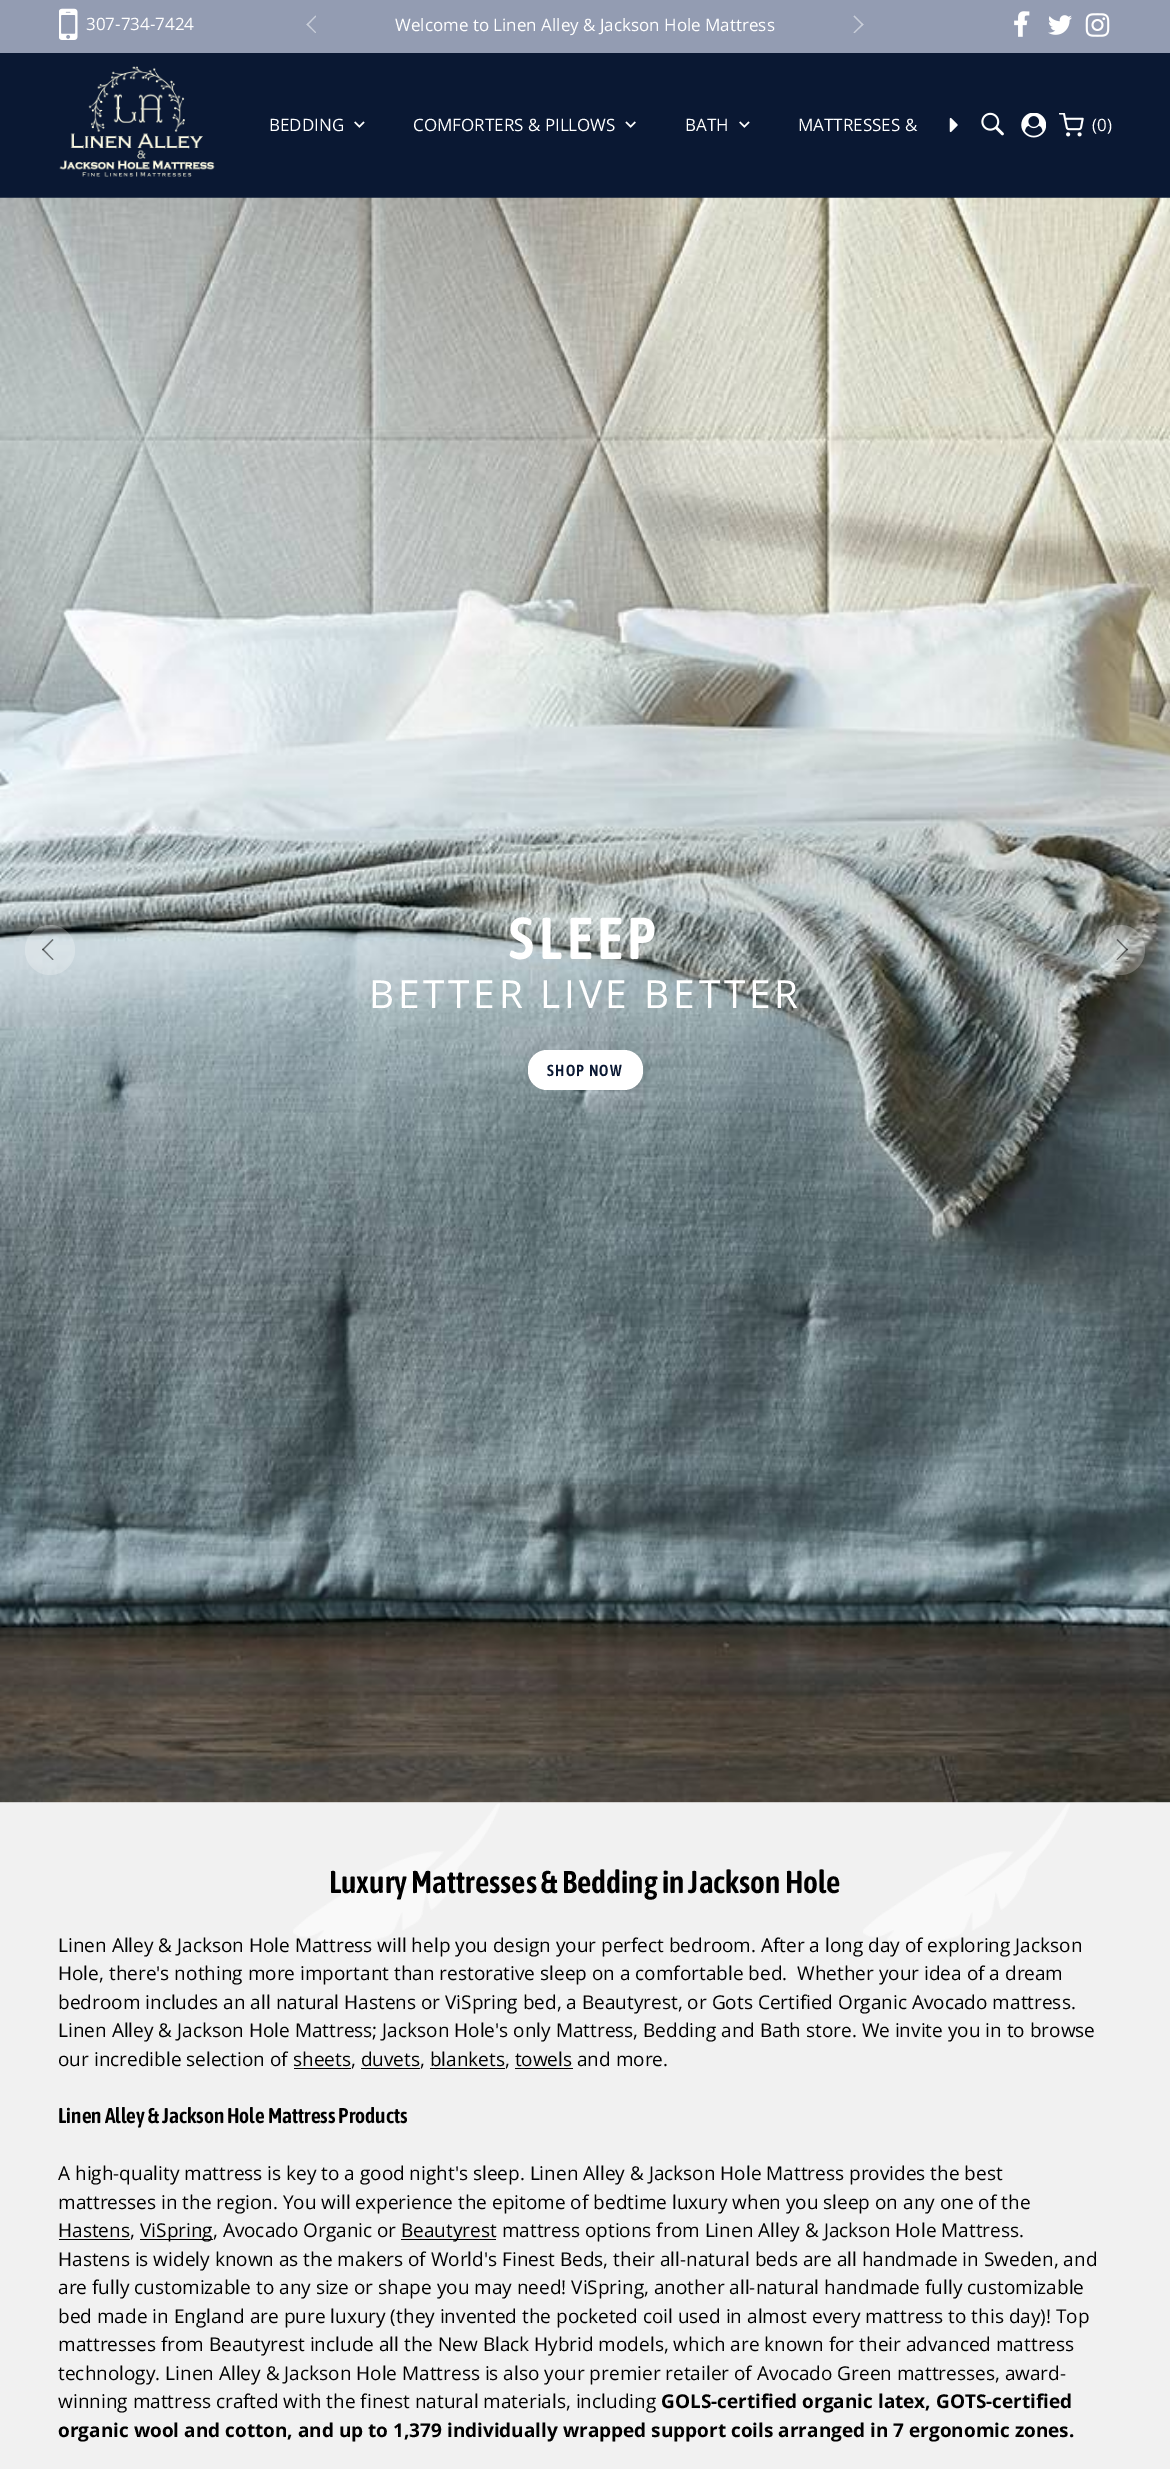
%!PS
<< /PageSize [1170 2469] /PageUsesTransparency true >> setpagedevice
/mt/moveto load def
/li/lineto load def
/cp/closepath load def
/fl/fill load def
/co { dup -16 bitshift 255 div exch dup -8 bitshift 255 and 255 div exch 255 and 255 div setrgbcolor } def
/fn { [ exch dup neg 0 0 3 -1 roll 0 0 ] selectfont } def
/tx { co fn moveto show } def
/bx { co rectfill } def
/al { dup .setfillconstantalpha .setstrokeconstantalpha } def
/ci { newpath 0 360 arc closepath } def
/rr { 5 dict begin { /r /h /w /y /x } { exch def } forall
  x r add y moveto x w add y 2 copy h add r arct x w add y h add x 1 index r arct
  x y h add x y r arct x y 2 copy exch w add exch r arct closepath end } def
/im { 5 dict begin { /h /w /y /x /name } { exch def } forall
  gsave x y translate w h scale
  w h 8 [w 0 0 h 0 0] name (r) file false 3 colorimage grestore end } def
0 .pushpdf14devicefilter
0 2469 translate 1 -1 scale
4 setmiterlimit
0 0 1170 2469 16#FFFFFF bx
0 0 1170 53 16#939CB2 bx
(media/1.raw) 59 8 19 32 im
16#C9CED9 co
316 32.5 mt 315.5 33 li 306.5 24.5 li 307.5 23.5 li cp fl
316 16.5 mt 307.5 25.5 li 306.5 24.5 li 315.5 15.5 li cp fl
853.5 16.5 mt 854.5 15.5 li 863.5 24.5 li 862.5 25.5 li cp fl
853.5 32.5 mt 862.5 23.5 li 863.5 24.5 li 854.5 33 li cp fl
(media/2.raw) 1014 11 16 26 im
(media/3.raw) 1048 15 24 20 im
(media/4.raw) 1085 13 25 24 im
0 53 1170 145 16#0A1833 bx
(media/5.raw) 59 66 156 111 im
(media/6.raw) 354 121 11 7 im
(media/7.raw) 625 121 11 7 im
(media/6.raw) 739 121 11 7 im
(media/8.raw) 949 117 9 16 im
(media/9.raw) 981 112 23 24 im
(media/10.raw) 1021 113 25 25 im
(media/11.raw) 1059 113 25 24 im
(media/12.raw) 0 197 1170 1606 im
16#FFFFFF co
528 1050 115 40 19 rr fl
0.25 al
50 950 25 ci fl
1 al
16#6C7173 co
53.5 959.5 mt 52.5 960 li 42 949.5 li 43 948.5 li cp fl
0.5 al
16#000000 co
53.5 940 mt 43 950.5 li 42 949.5 li 52.5 939 li cp fl
0.25 al
16#FFFFFF co
1120 950 25 ci fl
0.5 al
16#000000 co
1116.5 940 mt 1117.5 939 li 1128 949.5 li 1127 950.5 li cp fl
1116.5 959.5 mt 1127 948.5 li 1128 949.5 li 1117.5 960 li cp fl
1 al
0 1803 1170 666 16#F1F1F1 bx
(media/13.raw) 293 1803 207 140 im
(media/14.raw) 863 1803 207 140 im
294 2068 57 1 16#000000 bx
361 2068 59 1 16#000000 bx
430 2068 75 1 16#000000 bx
515 2068 58 1 16#000000 bx
59 2239 71 1 16#000000 bx
140 2239 73 1 16#000000 bx
401 2239 95 1 16#000000 bx
(307-734-7424) 86 30 /OpenSans-Regular 17 16#FFFFFF tx
(Welcome to Linen Alley & Jackson Hole Mattress) 395 31 /OpenSans-Regular 17 16#FFFFFF tx
(BEDDING) 269 131 /OpenSans-Regular 17 16#FFFFFF tx
(COMFORTERS & PILLOWS) 413 131 /OpenSans-Regular 17 16#FFFFFF tx
(BATH) 685 131 /OpenSans-Regular 17 16#FFFFFF tx
(MATTRESSES &) 798 131 /OpenSans-Regular 17 16#FFFFFF tx
(\(0\)) 1092 131 /OpenSans-Regular 17 16#FFFFFF tx
/AsapCondensed-SemiBold 59 fn
509 959 mt 5 0 (SLEEP) ashow
/OpenSans-Regular 38.75 fn
369 1008 mt 3.75 0 (BETTER LIVE BETTER) ashow
/AsapCondensed-SemiBold 16 fn
16#0A1833 co
547 1076 mt 1.25 0 (SHOP NOW) ashow
(Luxury Mattresses & Bedding in Jackson Hole) 329 1893 /AsapCondensed-SemiBold 31.6 16#000000 tx
(Linen Alley & Jackson Hole Mattress will help you design your perfect bedroom. After a long day of exploring Jackson) 58 1952 /OpenSans-Regular 19 16#000000 tx
(Hole, there's nothing more important than restorative sleep on a comfortable bed.  Whether your idea of a dream) 58 1980 /OpenSans-Regular 19 16#000000 tx
(bedroom includes an all natural Hastens or ViSpring bed, a Beautyrest, or Gots Certified Organic Avocado mattress.) 58 2009 /OpenSans-Regular 19 16#000000 tx
(Linen Alley & Jackson Hole Mattress; Jackson Hole's only Mattress, Bedding and Bath store. We invite you in to browse) 58 2037 /OpenSans-Regular 19 16#000000 tx
(our incredible selection of sheets, duvets, blankets, towels and more.) 58 2066 /OpenSans-Regular 19 16#000000 tx
(Linen Alley & Jackson Hole Mattress Products) 58 2123 /AsapCondensed-SemiBold 21.4 16#000000 tx
(A high-quality mattress is key to a good night's sleep. Linen Alley & Jackson Hole Mattress provides the best) 58 2180 /OpenSans-Regular 19 16#000000 tx
(mattresses in the region. You will experience the epitome of bedtime luxury when you sleep on any one of the) 58 2209 /OpenSans-Regular 19 16#000000 tx
(Hastens,) 58 2237 /OpenSans-Regular 19 16#000000 tx
(ViSpring, Avocado Organic or) 140 2237 /OpenSans-Regular 19 16#000000 tx
(Beautyrest mattress options from Linen Alley & Jackson Hole Mattress.) 401 2237 /OpenSans-Regular 19 16#000000 tx
(Hastens is widely known as the makers of World's Finest Beds, their all-natural beds are all handmade in Sweden, and) 58 2266 /OpenSans-Regular 19 16#000000 tx
(are fully customizable to any size or shape you may need! ViSpring, another all-natural handmade fully customizable) 58 2294 /OpenSans-Regular 19 16#000000 tx
(bed made in England are pure luxury \(they invented the pocketed coil used in almost every mattress to this day\)! Top) 58 2323 /OpenSans-Regular 19 16#000000 tx
(mattresses from Beautyrest include all the New Black Hybrid models, which are known for their advanced mattress) 58 2351 /OpenSans-Regular 19 16#000000 tx
(technology. Linen Alley & Jackson Hole Mattress is also your premier retailer of Avocado Green mattresses, award-) 58 2380 /OpenSans-Regular 19 16#000000 tx
(winning mattress crafted with the finest natural materials, including) 58 2408 /OpenSans-Regular 19 16#000000 tx
(GOLS-certified organic latex, GOTS-certified) 661 2408 /OpenSans-Bold 19 16#000000 tx
(organic wool and cotton, and up to 1,379 individually wrapped support coils arranged in 7 ergonomic zones.) 58 2437 /OpenSans-Bold 19 16#000000 tx
.poppdf14devicefilter showpage
